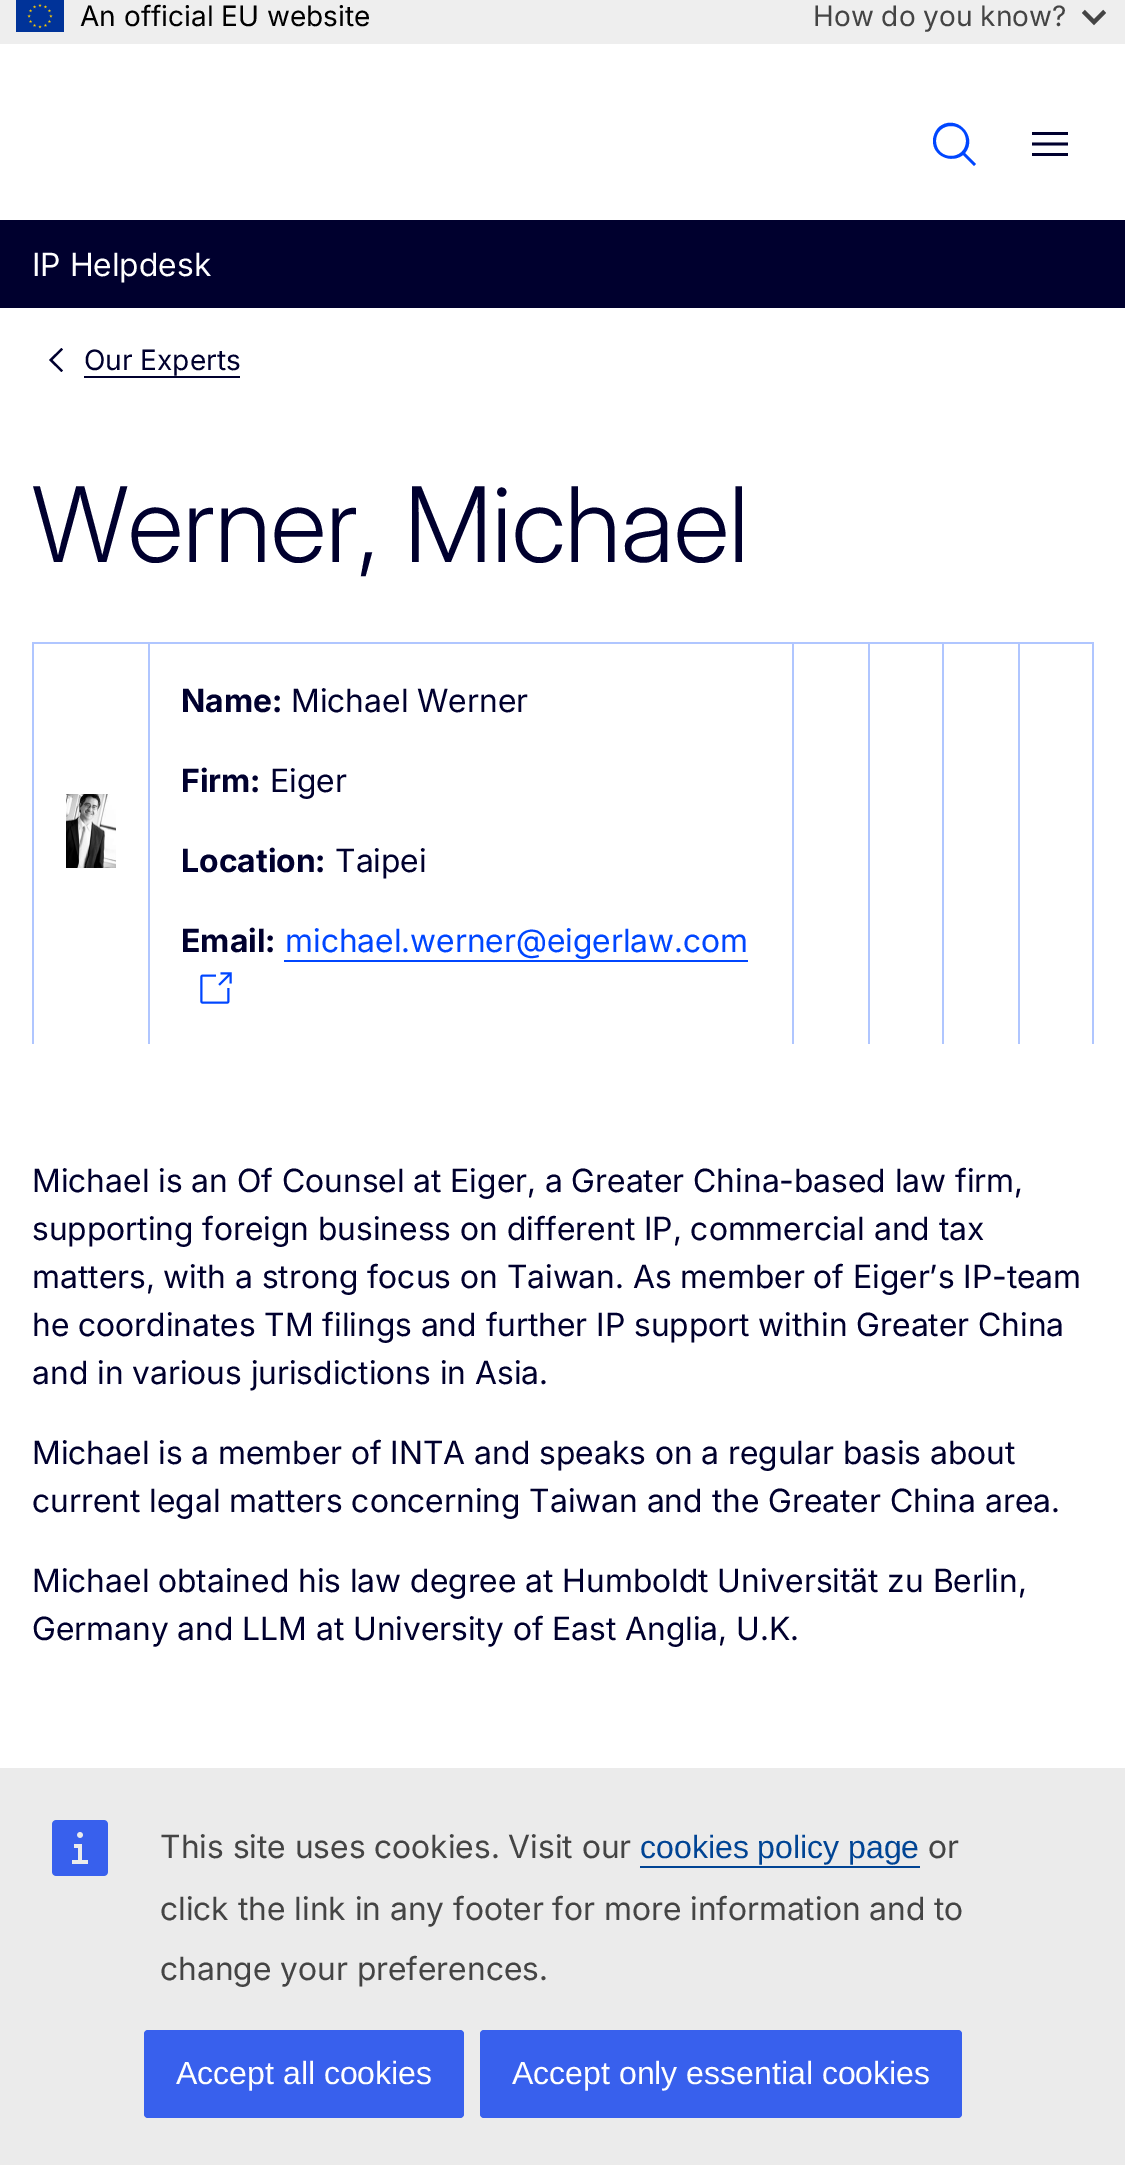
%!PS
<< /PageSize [1125 2165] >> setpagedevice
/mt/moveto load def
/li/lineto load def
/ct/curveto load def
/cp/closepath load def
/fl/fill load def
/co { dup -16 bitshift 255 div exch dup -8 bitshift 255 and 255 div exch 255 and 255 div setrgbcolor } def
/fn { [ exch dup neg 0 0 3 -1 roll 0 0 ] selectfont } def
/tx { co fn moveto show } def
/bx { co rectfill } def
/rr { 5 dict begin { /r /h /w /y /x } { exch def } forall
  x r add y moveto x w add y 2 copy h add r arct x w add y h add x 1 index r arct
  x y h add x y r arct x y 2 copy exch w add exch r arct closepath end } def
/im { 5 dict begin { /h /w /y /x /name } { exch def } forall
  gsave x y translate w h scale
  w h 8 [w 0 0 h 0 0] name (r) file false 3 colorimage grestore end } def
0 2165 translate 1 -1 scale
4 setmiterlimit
0 0 1125 2165 16#FFFFFF bx
0 0 1125 44 16#EEEEEE bx
(media/1.raw) 16 0 48 32 im
(media/2.raw) 1082 9 24 17 im
16#0046FF co
933 141 mt 933 136 935 132 938 128 ct 955 112 979 136 965 153 ct 976 164 li 974 166 li 963 155 li 951 164 933 156 933 141 ct 966 141 mt 966 121 936 121 936 141 ct 936 161 966 161 966 141 ct eofill
16#00002E co
1068 132 mt 1032 132 li 1032 135 li 1068 135 li cp 1068 153 mt 1032 153 li 1032 156 li 1068 156 li cp 1032 142.5 mt 1068 142.5 li 1068 145.5 li 1032 145.5 li cp eofill
0 220 1125 88 16#00002E bx
61.5 348 mt 63 349.5 li 52.5 360 li 63 370.5 li 61.5 372 li 49 360 li cp fl
84 376 156 2 16#00002E bx
32 642 1062 2 16#B0C6FF bx
32 642 2 402 16#B0C6FF bx
(media/3.raw) 66 794 50 74 im
148 642 2 402 16#B0C6FF bx
284 960 464 2 16#0046FF bx
(media/4.raw) 200 972 32 32 im
792 642 2 402 16#B0C6FF bx
868 642 2 402 16#B0C6FF bx
942 642 2 402 16#B0C6FF bx
1092 642 2 402 16#B0C6FF bx
1018 642 2 402 16#B0C6FF bx
0 1768 1125 397 16#EBEBEB bx
(media/5.raw) 52 1820 56 56 im
640 1866 280 2 16#004494 bx
16#3860ED co
144 2030 320 88 4 rr fl
480 2030 482 88 4 rr fl
(An official EU website) 80 26 /Inter-Regular 28 16#000000 tx
(How do you know?) 813 26 /Inter-Regular 28 16#444444 tx
(IP Helpdesk) 32 276 /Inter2-Regular 32 16#FFFFFF tx
(Our Experts) 84 370 /Inter-Regular 28 16#00002E tx
(Werner, Michael) 32 562 /Inter-Light 104 16#00002E tx
(Name:) 181 712 /Inter-Bold 32 16#00002E tx
(Michael Werner) 291 712 /Inter2-Regular 32 16#00002E tx
(Firm:) 181 792 /Inter-Bold 32 16#00002E tx
(Eiger) 270 792 /Inter2-Regular 32 16#00002E tx
(Location:) 181 872 /Inter-Bold 32 16#00002E tx
(Taipei) 335 872 /Inter2-Regular 32 16#00002E tx
(Email:) 181 952 /Inter-Bold 32 16#00002E tx
(michael.werner@eigerlaw.com) 285 952 /Inter2-Regular 32 16#0046FF tx
(Michael is an Of Counsel at Eiger, a Greater China-based law firm,) 32 1192 /Inter2-Regular 32 16#00002E tx
(supporting foreign business on different IP, commercial and tax) 32 1240 /Inter2-Regular 32 16#00002E tx
(matters, with a strong focus on Taiwan. As member of Eiger’s IP-team) 32 1288 /Inter2-Regular 32 16#00002E tx
(he coordinates TM filings and further IP support within Greater China) 32 1336 /Inter2-Regular 32 16#00002E tx
(and in various jurisdictions in Asia.) 32 1384 /Inter2-Regular 32 16#00002E tx
(Michael is a member of INTA and speaks on a regular basis about) 32 1464 /Inter2-Regular 32 16#00002E tx
(current legal matters concerning Taiwan and the Greater China area.) 32 1512 /Inter2-Regular 32 16#00002E tx
(Michael obtained his law degree at Humboldt Universität zu Berlin,) 32 1592 /Inter2-Regular 32 16#00002E tx
(Germany and LLM at University of East Anglia, U.K.) 32 1640 /Inter2-Regular 32 16#00002E tx
(This site uses cookies. Visit our) 160 1858 /Inter2-Regular 32 16#444444 tx
(cookies policy page) 640 1858 /LiberationSans-Regular 32 16#004494 tx
(or) 928 1858 /Inter2-Regular 32 16#444444 tx
(click the link in any footer for more information and to) 160 1920 /Inter2-Regular 32 16#444444 tx
(change your preferences.) 160 1980 /Inter2-Regular 32 16#444444 tx
(Accept all cookies) 176 2084 /LiberationSans-Regular 32 16#FFFFFF tx
(Accept only essential cookies) 512 2084 /LiberationSans-Regular 32 16#FFFFFF tx
showpage
